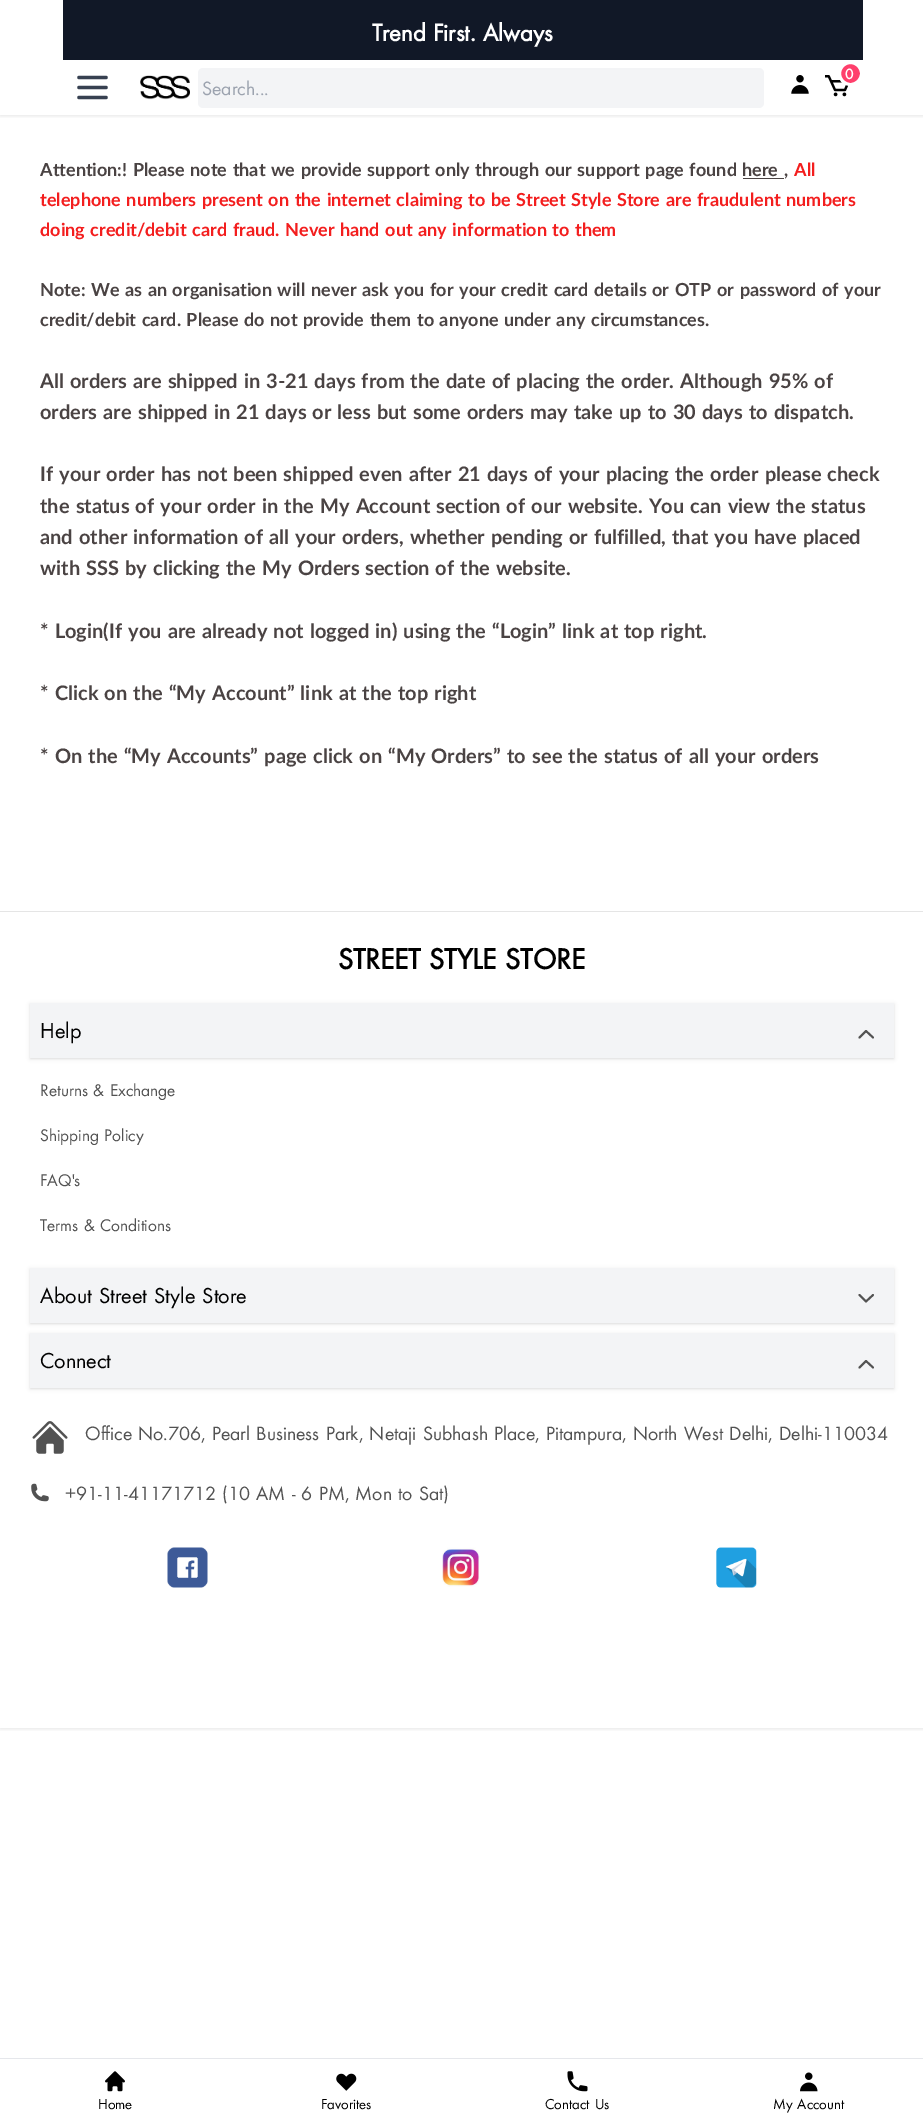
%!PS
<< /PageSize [923 2118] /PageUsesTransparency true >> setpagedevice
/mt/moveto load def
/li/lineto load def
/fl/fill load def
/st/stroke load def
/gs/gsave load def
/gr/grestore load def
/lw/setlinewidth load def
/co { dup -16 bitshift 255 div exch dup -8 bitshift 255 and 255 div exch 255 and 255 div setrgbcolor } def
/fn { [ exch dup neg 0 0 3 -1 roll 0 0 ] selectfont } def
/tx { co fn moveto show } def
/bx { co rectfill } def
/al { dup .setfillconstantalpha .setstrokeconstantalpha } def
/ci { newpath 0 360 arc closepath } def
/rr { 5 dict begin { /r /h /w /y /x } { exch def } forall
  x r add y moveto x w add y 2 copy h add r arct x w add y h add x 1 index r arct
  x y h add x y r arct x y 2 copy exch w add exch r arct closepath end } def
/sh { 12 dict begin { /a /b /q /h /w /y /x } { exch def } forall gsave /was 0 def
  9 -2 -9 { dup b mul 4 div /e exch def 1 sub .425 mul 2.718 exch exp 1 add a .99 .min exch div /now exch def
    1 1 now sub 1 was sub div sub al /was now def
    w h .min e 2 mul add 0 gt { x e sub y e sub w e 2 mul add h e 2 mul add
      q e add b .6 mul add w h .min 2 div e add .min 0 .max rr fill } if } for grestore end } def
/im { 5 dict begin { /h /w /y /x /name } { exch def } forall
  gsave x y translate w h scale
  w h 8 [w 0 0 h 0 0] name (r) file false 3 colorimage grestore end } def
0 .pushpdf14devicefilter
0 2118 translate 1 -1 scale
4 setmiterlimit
0 0 923 2118 16#FFFFFF bx
gs
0 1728 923 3 rectclip
16#000000 co
0 1 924 1728 0 2 .1 sh
gr
gs
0 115 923 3 rectclip
16#000000 co
0 1 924 115 0 2 .1 sh
gr
63 0 800 60 16#111827 bx
16#374151 co
3.3 lw
1 setlinecap
1 setlinejoin
79 77.5 mt 106 77.5 li 79 87.5 mt 106 87.5 li 79 97.5 mt 106 97.5 li st
(media/1.raw) 140 75 50 25 im
16#F3F4F6 co
198 68 566 40 5 rr fl
(media/2.raw) 791 75 18 19 im
(media/3.raw) 825 75 24 22 im
16#FF3F6C co
850.5 73.5 11 ci gs fl gr
16#FFFFFF co
3 lw
0 setlinecap
0 setlinejoin
st
743 178 41 1 16#4A4343 bx
0 911 923 1 16#E5E5E5 bx
16#000000 co
31 1005 862 53 0 1 .1 sh
30 1004 864 55 0 2 .1 sh
30 1003 864 55 16#F3F4F6 bx
16#525252 co
1.9 lw
1 setlinecap
1 setlinejoin
859.5 1037.5 mt 866 1031 li 873 1037.5 li st
16#000000 co
31 1270 862 53 0 1 .1 sh
30 1269 864 55 0 2 .1 sh
30 1268 864 55 16#F3F4F6 bx
16#525252 co
873 1295 mt 866 1301.5 li 859.5 1295 li st
16#000000 co
31 1335 862 53 0 1 .1 sh
30 1334 864 55 0 2 .1 sh
30 1333 864 55 16#F3F4F6 bx
16#525252 co
859.5 1367.5 mt 866 1361 li 873 1367.5 li st
(media/4.raw) 32 1421 36 33 im
(media/5.raw) 31 1483 18 19 im
(media/6.raw) 167 1547 41 41 im
(media/7.raw) 442 1547 38 40 im
(media/8.raw) 716 1547 41 41 im
0 1727 923 1 16#FFFFFF bx
0 2058 923 1 16#E5E7EB bx
(media/9.raw) 105 2071 20 21 im
(media/10.raw) 336 2073 21 18 im
(media/11.raw) 567 2071 21 21 im
(media/12.raw) 800 2072 18 20 im
/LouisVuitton-Bold 25 fn
16#FFFFFF co
372 41 mt 1.25 0 32 (Trend First. Always) widthshow
(Search...) 202 95 /LouisVuitton-Regular 20 16#9CA3AF tx
(0) 845 79 /LouisVuitton-Bold 15 16#FFFFFF tx
/Lato-Bold 18 fn
16#4A4343 co
40 176 mt 1.25 0 32 (Attention:! Please note that we provide support only through our support page found) widthshow
(here) 742 176 /Lato-Bold 18 16#4A4343 tx
(,) 784 176 /Lato-Bold 18 16#4A4343 tx
(All) 794 176 /Lato-Bold 18 16#F31E1E tx
40 206 mt 1.25 0 32 (telephone numbers present on the internet claiming to be Street Style Store are fraudulent numbers) widthshow
40 236 mt 1.25 0 32 (doing credit/debit card fraud. Never hand out any information to them) widthshow
16#4A4343 co
40 296 mt 1.25 0 32 (Note: We as an organisation will never ask you for your credit card details or OTP or password of your) widthshow
40 326 mt 1.25 0 32 (credit/debit card. Please do not provide them to anyone under any circumstances.) widthshow
/Lato-Bold 20 fn
40 388 mt 1.25 0 32 (All orders are shipped in 3-21 days from the date of placing the order. Although 95% of) widthshow
40 419 mt 1.25 0 32 (orders are shipped in 21 days or less but some orders may take up to 30 days to dispatch.) widthshow
40 481 mt 1.25 0 32 (If your order has not been shipped even after 21 days of your placing the order please check) widthshow
40 513 mt 1.25 0 32 (the status of your order in the) widthshow
320 513 mt 1.25 0 32 (My Account) widthshow
436 513 mt 1.25 0 32 (section of our website. You can view the status) widthshow
40 544 mt 1.25 0 32 (and other information of all your orders, whether pending or fulfilled, that you have placed) widthshow
40 575 mt 1.25 0 32 (with SSS by clicking the) widthshow
262 575 mt 1.25 0 32 (My Orders) widthshow
365 575 mt 1.25 0 32 (section of the website.) widthshow
40 638 mt 1.25 0 32 (* Login\(If you are already not logged in\) using the “Login” link at top right.) widthshow
40 700 mt 1.25 0 32 (* Click on the “My Account” link at the top right) widthshow
40 763 mt 1.25 0 32 (* On the “My Accounts” page click on “My Orders” to see the status of all your orders) widthshow
/LouisVuitton-Bold 30 fn
16#000000 co
338 969 mt 1.25 0 32 (STREET STYLE STORE) widthshow
(Help) 40 1038 /LouisVuitton-Regular 22.5 16#000000 tx
/LouisVuitton-Regular 17.5 fn
16#525252 co
40 1096 mt 1.25 0 32 (Returns & Exchange) widthshow
40 1141 mt 1.25 0 32 (Shipping Policy) widthshow
(FAQ's) 40 1186 /LouisVuitton-Regular 17.5 16#525252 tx
40 1231 mt 1.25 0 32 (Terms & Conditions) widthshow
/LouisVuitton-Regular 22.5 fn
16#000000 co
40 1303 mt 1.25 0 32 (About Street Style Store) widthshow
(Connect) 40 1368 /LouisVuitton-Regular 22.5 16#000000 tx
/LouisVuitton-Regular 20 fn
16#525252 co
85 1440 mt 1.25 0 32 (Office No.706, Pearl Business Park, Netaji Subhash Place, Pitampura, North West Delhi, Delhi-110034) widthshow
(+91-11-41171712) 65 1500 /LouisVuitton-Regular 20 16#525252 tx
222 1500 mt 1.25 0 32 (\(10 AM - 6 PM, Mon to Sat\)) widthshow
(Home) 98 2109 /LouisVuitton-Regular 15 16#000000 tx
(Favorites) 321 2109 /LouisVuitton-Regular 15 16#000000 tx
545 2109 mt 1.25 0 32 (Contact Us) widthshow
773 2109 mt 1.25 0 32 (My Account) widthshow
.poppdf14devicefilter showpage
